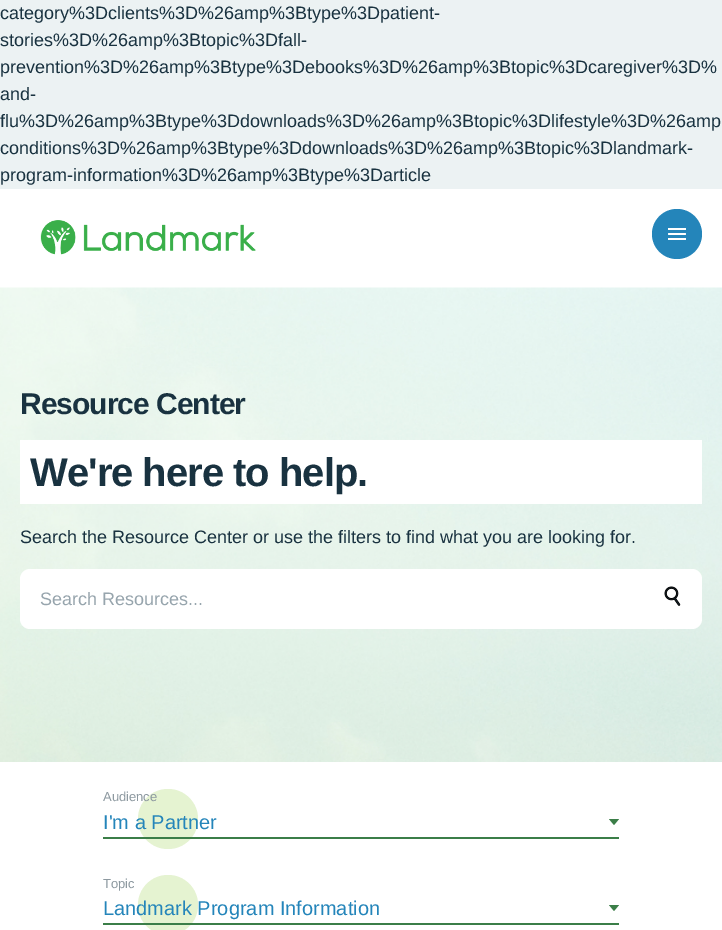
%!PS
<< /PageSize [722 930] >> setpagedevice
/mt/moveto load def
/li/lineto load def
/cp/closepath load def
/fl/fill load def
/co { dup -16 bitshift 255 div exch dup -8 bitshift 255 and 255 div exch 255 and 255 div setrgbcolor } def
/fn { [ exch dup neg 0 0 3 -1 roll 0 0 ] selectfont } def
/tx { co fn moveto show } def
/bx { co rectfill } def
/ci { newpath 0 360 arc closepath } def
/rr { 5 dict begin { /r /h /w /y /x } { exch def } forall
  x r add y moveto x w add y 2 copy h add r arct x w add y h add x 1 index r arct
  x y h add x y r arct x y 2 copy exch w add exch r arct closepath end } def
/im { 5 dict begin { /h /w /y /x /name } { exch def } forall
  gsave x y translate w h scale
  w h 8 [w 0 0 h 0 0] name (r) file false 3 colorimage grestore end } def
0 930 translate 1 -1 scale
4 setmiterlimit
0 0 722 930 16#ECF2F3 bx
0 189 722 741 16#FFFFFF bx
(media/1.raw) 40 220 216 35 im
16#2485BA co
677 234 25 ci fl
668 228 18 2 16#FFFFFF bx
668 238 18 2 16#FFFFFF bx
668 233 18 2 1 rr fl
(media/2.raw) 0 287 722 475 im
20 440 682 64 16#FFFFFF bx
20 569 682 60 10 rr fl
(media/3.raw) 664 586 17 20 im
16#E5F3D1 co
168 819 30 ci fl
103 837 516 2 16#3B7E48 bx
609 819 mt 619 819 li 614 825 li cp fl
16#E5F3D1 co
168 905 30 ci fl
103 923 516 2 16#3B7E48 bx
609 905 mt 619 905 li 614 911 li cp fl
(category%3Dclients%3D%26amp%3Btype%3Dpatient-) 0 19 /LiberationSans-Regular 18 16#193240 tx
(stories%3D%26amp%3Btopic%3Dfall-) 0 46 /LiberationSans-Regular 18 16#193240 tx
(prevention%3D%26amp%3Btype%3Debooks%3D%26amp%3Btopic%3Dcaregiver%3D%) 0 73 /LiberationSans-Regular 18 16#193240 tx
(and-) 0 100 /LiberationSans-Regular 18 16#193240 tx
(flu%3D%26amp%3Btype%3Ddownloads%3D%26amp%3Btopic%3Dlifestyle%3D%26amp) 0 127 /LiberationSans-Regular 18 16#193240 tx
(conditions%3D%26amp%3Btype%3Ddownloads%3D%26amp%3Btopic%3Dlandmark-) 0 154 /LiberationSans-Regular 18 16#193240 tx
(program-information%3D%26amp%3Btype%3Darticle) 0 181 /LiberationSans-Regular 18 16#193240 tx
/LiberationSans-Bold 30 fn
20 414 mt -1 0 (Resource Center) ashow
/LiberationSans-Bold 40 fn
30 486 mt -1 0 (We're here to help.) ashow
(Search the Resource Center or use the filters to find what you are looking for.) 20 543 /LiberationSans-Regular 18 16#193240 tx
(Search Resources...) 40 605 /LiberationSans-Regular 18 16#97A5AD tx
(Audience) 103 801 /LiberationSans-Regular 13 16#8D99A0 tx
(I'm a Partner) 103 829 /LiberationSans-Regular 20 16#2485BA tx
(Topic) 103 888 /LiberationSans-Regular 13 16#8D99A0 tx
(Landmark Program Information) 103 915 /LiberationSans-Regular 20 16#2485BA tx
showpage
